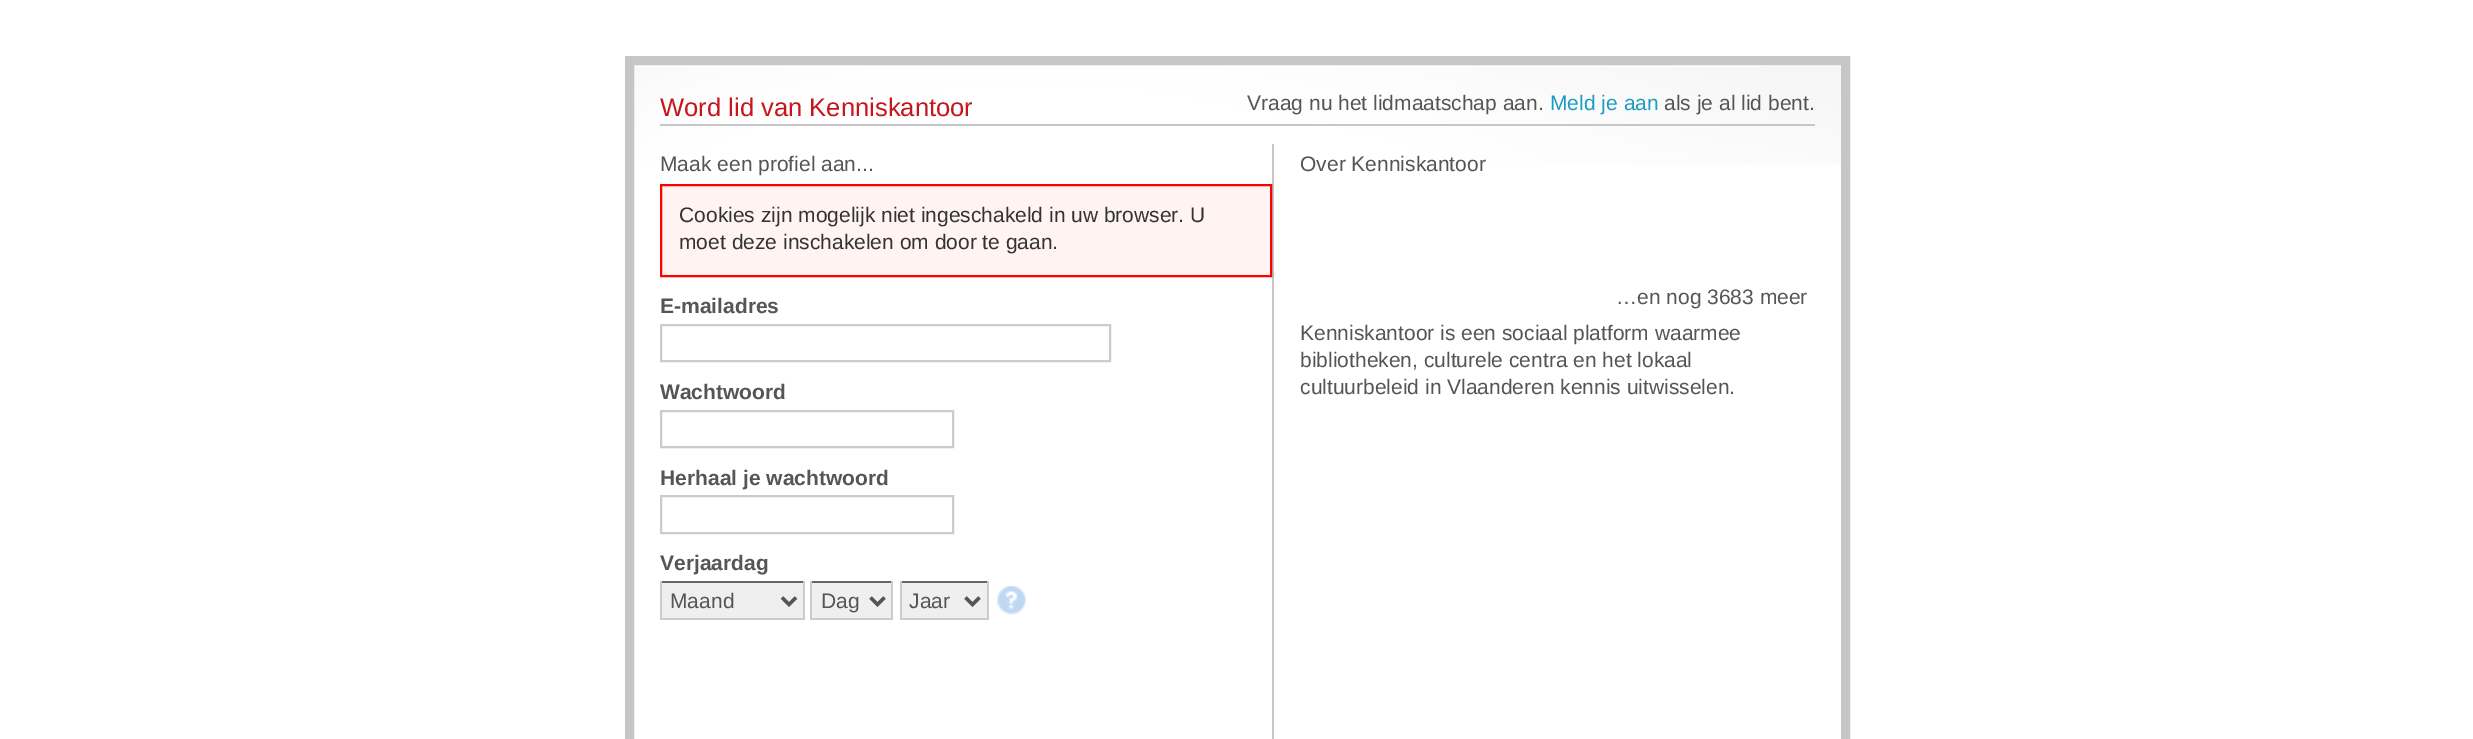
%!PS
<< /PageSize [2473 739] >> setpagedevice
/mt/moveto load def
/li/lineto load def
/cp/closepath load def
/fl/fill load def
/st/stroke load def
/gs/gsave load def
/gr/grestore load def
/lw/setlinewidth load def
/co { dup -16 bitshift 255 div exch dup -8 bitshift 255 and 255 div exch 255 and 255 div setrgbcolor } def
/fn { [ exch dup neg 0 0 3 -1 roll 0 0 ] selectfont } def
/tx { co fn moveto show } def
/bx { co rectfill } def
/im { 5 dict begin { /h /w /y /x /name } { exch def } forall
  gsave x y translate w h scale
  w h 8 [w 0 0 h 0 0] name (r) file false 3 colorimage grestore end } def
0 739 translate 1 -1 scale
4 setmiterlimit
0 0 2473 739 16#FFFFFF bx
(media/1.raw) 634 65 1207 100 im
16#C6C6C6 co
9 lw
629.5 60.5 1216 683 rectstroke
660 124 1155 2 16#C6C6C6 bx
1272 144 2 595 16#C6C6C6 bx
16#FFF4F2 co
661 185 mt 1271 185 li 1271 276 li 661 276 li cp gs fl gr
16#FF0000 co
2 lw
st
16#CCCCCC co
661 325 449 36 rectstroke
661 411 292 36 rectstroke
661 496 292 37 rectstroke
662 583 141 35 16#EFEFEF bx
660 581 145 2 16#666666 bx
803 581 2 39 16#CCCCCC bx
660 618 145 2 16#CCCCCC bx
660 581 2 39 16#CCCCCC bx
16#555555 co
3.5 lw
782 597.5 mt 789 604.5 li 796 597.5 li st
812 583 79 35 16#EFEFEF bx
810 581 83 2 16#666666 bx
891 581 2 39 16#CCCCCC bx
810 618 83 2 16#CCCCCC bx
810 581 2 39 16#CCCCCC bx
16#555555 co
870.5 597.5 mt 877.5 604.5 li 884.5 597.5 li st
902 583 85 35 16#EFEFEF bx
900 581 89 2 16#666666 bx
987 581 2 39 16#CCCCCC bx
900 618 89 2 16#CCCCCC bx
900 581 2 39 16#CCCCCC bx
16#555555 co
965.5 597.5 mt 972.5 604.5 li 979.5 597.5 li st
(media/2.raw) 997 586 29 29 im
(Word lid van Kenniskantoor) 660 116 /LiberationSans-Regular 25.6 16#C4161C tx
(Vraag nu het lidmaatschap aan.) 1247 110 /LiberationSans-Regular 21 16#555555 tx
(Meld je aan) 1550 110 /LiberationSans-Regular 21 16#1C9CC1 tx
(als je al lid bent.) 1664 110 /LiberationSans-Regular 21 16#555555 tx
(Maak een profiel aan...) 660 171 /LiberationSans-Regular 21 16#555555 tx
(Cookies zijn mogelijk niet ingeschakeld in uw browser. U) 679 222 /LiberationSans-Regular 21 16#333333 tx
(moet deze inschakelen om door te gaan.) 679 249 /LiberationSans-Regular 21 16#333333 tx
(E-mailadres) 660 313 /LiberationSans-Bold 21 16#555555 tx
(Wachtwoord) 660 399 /LiberationSans-Bold 21 16#555555 tx
(Herhaal je wachtwoord) 660 485 /LiberationSans-Bold 21 16#555555 tx
(Verjaardag) 660 570 /LiberationSans-Bold 21 16#555555 tx
(Maand) 670 608 /LiberationSans-Regular 21 16#555555 tx
(Dag) 821 608 /LiberationSans-Regular 21 16#555555 tx
(Jaar) 909 608 /LiberationSans-Regular 21 16#555555 tx
(Over Kenniskantoor) 1300 171 /LiberationSans-Regular 21 16#555555 tx
(…en nog 3683 meer) 1616 304 /LiberationSans-Regular 21 16#555555 tx
(Kenniskantoor is een sociaal platform waarmee) 1300 340 /LiberationSans-Regular 21 16#555555 tx
(bibliotheken, culturele centra en het lokaal) 1300 367 /LiberationSans-Regular 21 16#555555 tx
(cultuurbeleid in Vlaanderen kennis uitwisselen.) 1300 394 /LiberationSans-Regular 21 16#555555 tx
showpage
